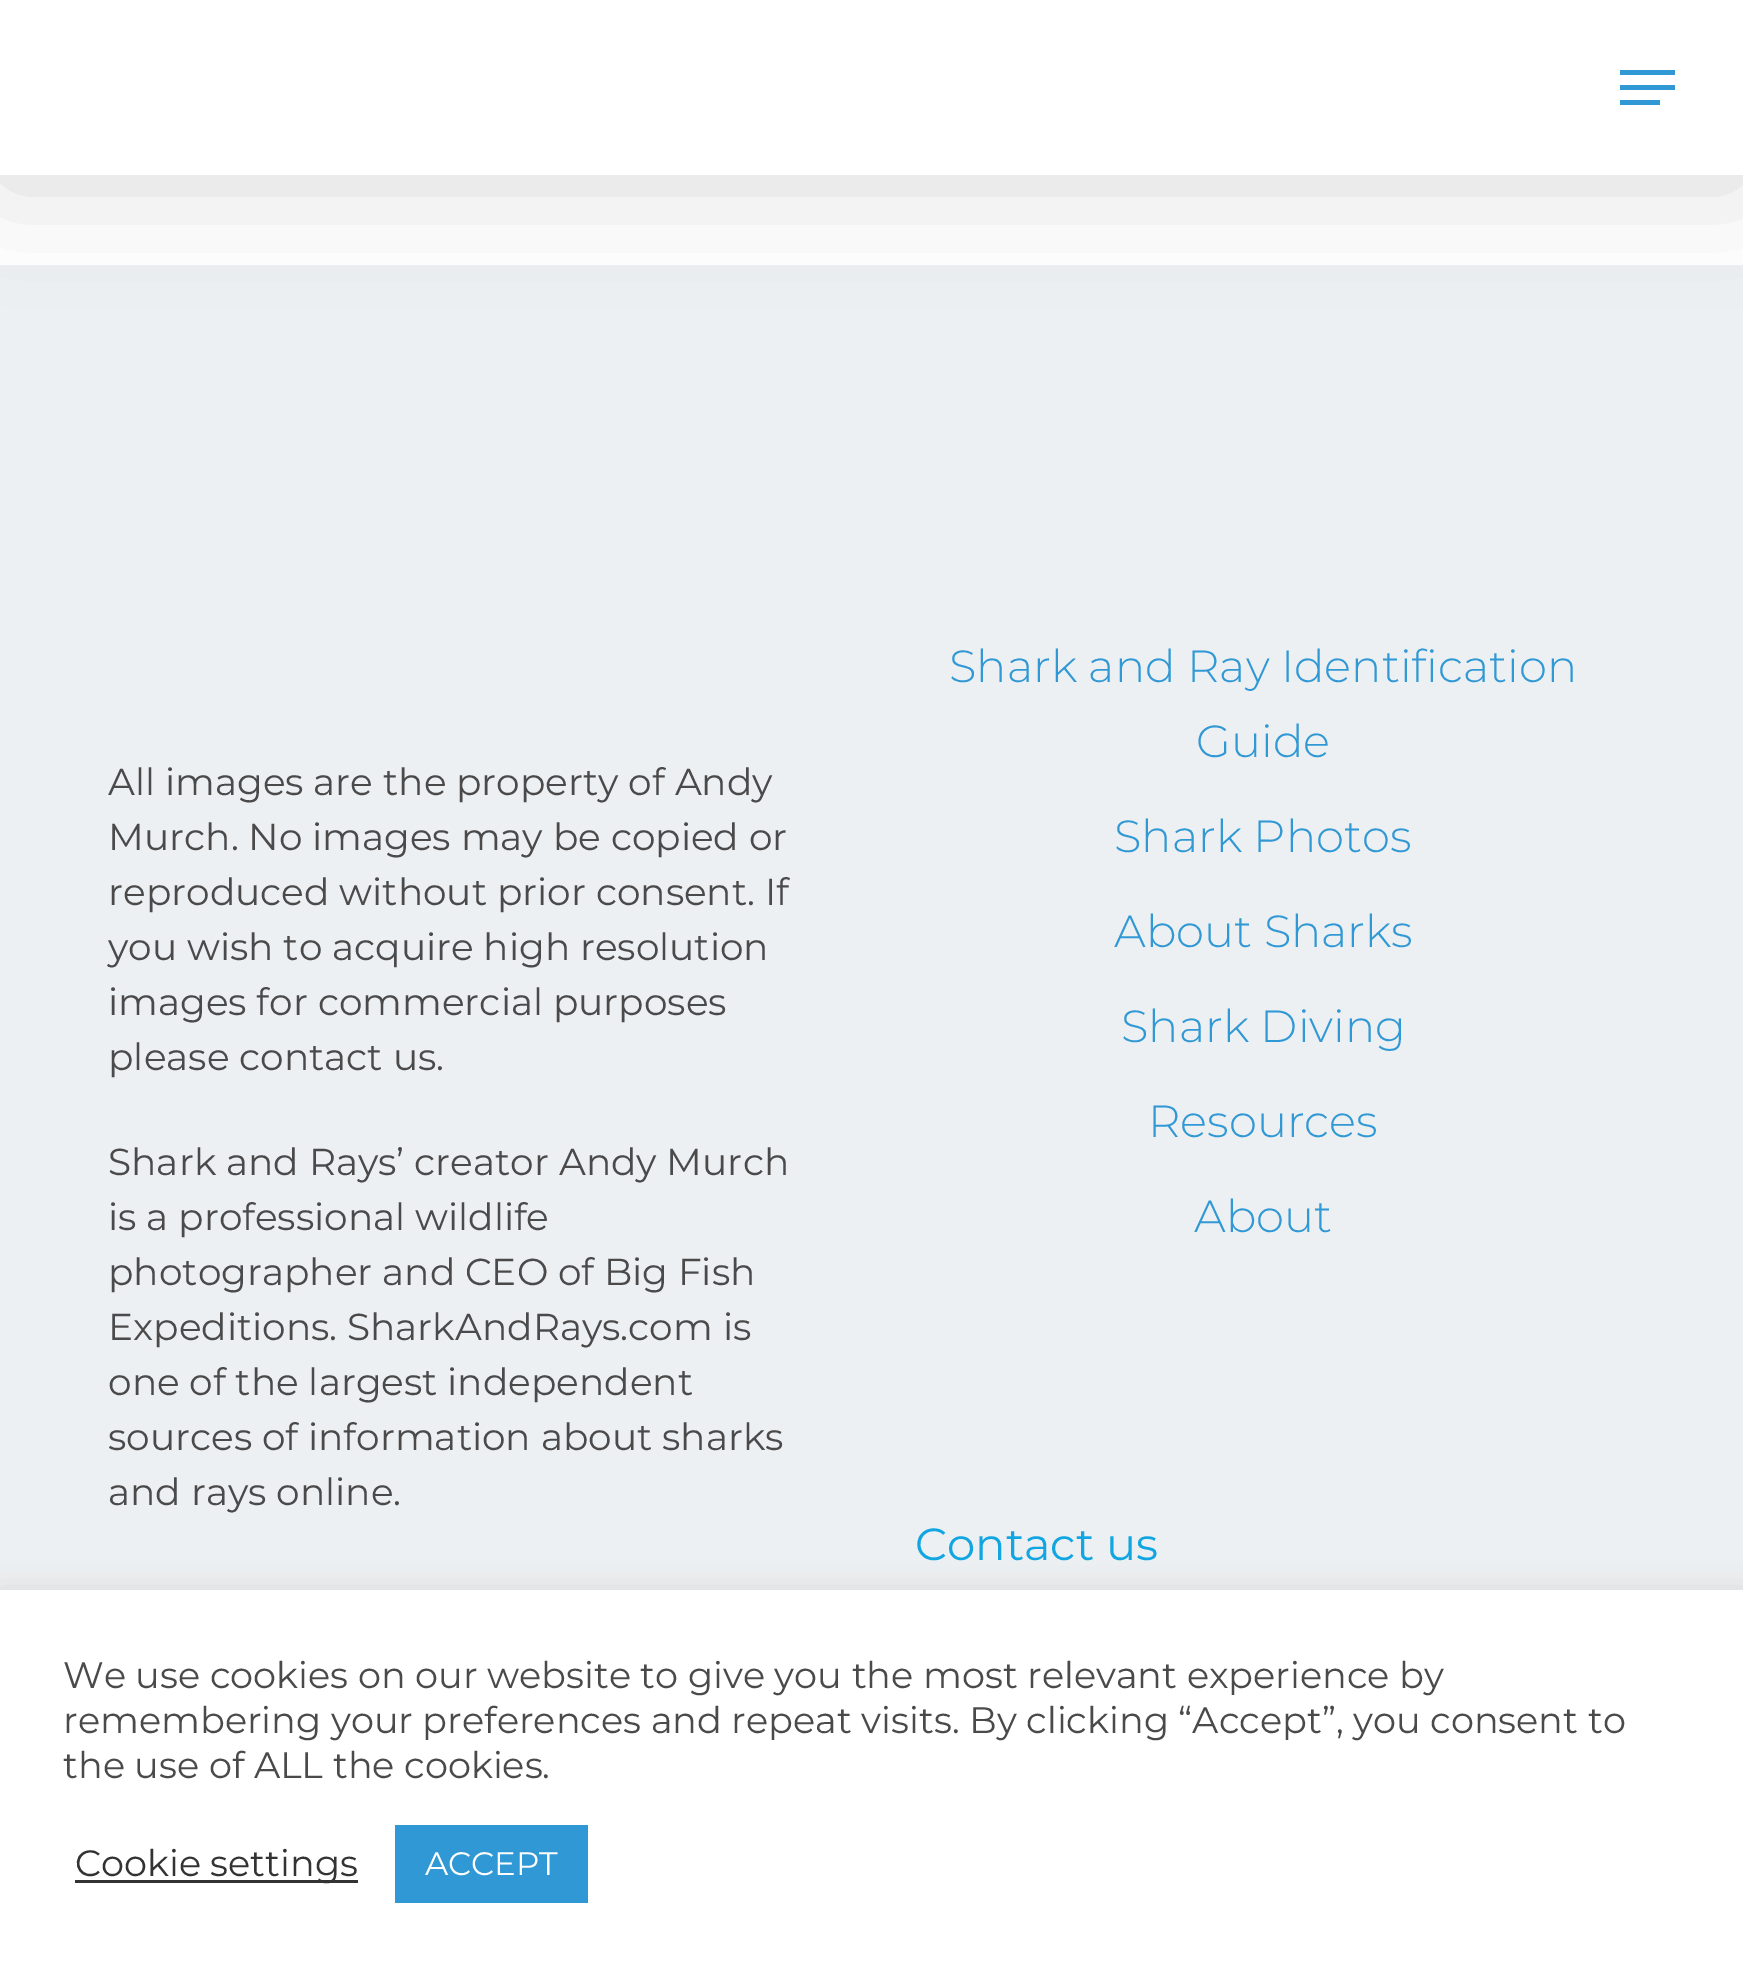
%!PS
<< /PageSize [1743 1977] /PageUsesTransparency true >> setpagedevice
/co { dup -16 bitshift 255 div exch dup -8 bitshift 255 and 255 div exch 255 and 255 div setrgbcolor } def
/fn { [ exch dup neg 0 0 3 -1 roll 0 0 ] selectfont } def
/tx { co fn moveto show } def
/bx { co rectfill } def
/al { dup .setfillconstantalpha .setstrokeconstantalpha } def
/rr { 5 dict begin { /r /h /w /y /x } { exch def } forall
  x r add y moveto x w add y 2 copy h add r arct x w add y h add x 1 index r arct
  x y h add x y r arct x y 2 copy exch w add exch r arct closepath end } def
/sh { 12 dict begin { /a /b /q /h /w /y /x } { exch def } forall gsave /was 0 def
  9 -2 -9 { dup b mul 4 div /e exch def 1 sub .425 mul 2.718 exch exp 1 add a .99 .min exch div /now exch def
    1 1 now sub 1 was sub div sub al /was now def
    w h .min e 2 mul add 0 gt { x e sub y e sub w e 2 mul add h e 2 mul add
      q e add b .6 mul add w h .min 2 div e add .min 0 .max rr fill } if } for grestore end } def
0 .pushpdf14devicefilter
0 1977 translate 1 -1 scale
4 setmiterlimit
0 0 1743 1977 16#FFFFFF bx
0 265 1743 1325 16#EDF0F2 bx
16#000000 co
0 -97 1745 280 0 56 .15 sh
0 0 1743 175 16#FFFFFF bx
1620 70 55 5 16#3098D4 bx
1620 100 40 5 16#3098D4 bx
1620 85 55 5 16#3098D4 bx
16#ACABAB co
0 1588 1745 387 0 12.5 .3 sh
0 1590 1743 387 16#FFFFFF bx
75 1880 283 3 16#333333 bx
395 1825 193 78 16#3098D4 bx
(All images are the property of Andy) 108 795 /Montserrat-Regular 37.5 16#4A4A4A tx
(Murch. No images may be copied or) 108 850 /Montserrat-Regular 37.5 16#4A4A4A tx
(reproduced without prior consent. If) 108 905 /Montserrat-Regular 37.5 16#4A4A4A tx
(you wish to acquire high resolution) 108 960 /Montserrat-Regular 37.5 16#4A4A4A tx
(images for commercial purposes) 108 1015 /Montserrat-Regular 37.5 16#4A4A4A tx
(please contact us.) 108 1070 /Montserrat-Regular 37.5 16#4A4A4A tx
(Shark and Rays’ creator Andy Murch) 108 1175 /Montserrat-Regular 37.5 16#4A4A4A tx
(is a professional wildlife) 108 1230 /Montserrat-Regular 37.5 16#4A4A4A tx
(photographer and CEO of Big Fish) 108 1285 /Montserrat-Regular 37.5 16#4A4A4A tx
(Expeditions. SharkAndRays.com is) 108 1340 /Montserrat-Regular 37.5 16#4A4A4A tx
(one of the largest independent) 108 1395 /Montserrat-Regular 37.5 16#4A4A4A tx
(sources of information about sharks) 108 1450 /Montserrat-Regular 37.5 16#4A4A4A tx
(and rays online.) 108 1505 /Montserrat-Regular 37.5 16#4A4A4A tx
(Shark and Ray Identification) 949 682 /Montserrat-Light 45 16#3098D4 tx
(Guide) 1196 757 /Montserrat-Light 45 16#3098D4 tx
(Shark Photos) 1114 852 /Montserrat-Light 45 16#3098D4 tx
(About Sharks) 1114 947 /Montserrat-Light 45 16#3098D4 tx
(Shark Diving) 1121 1042 /Montserrat-Light 45 16#3098D4 tx
(Resources) 1148 1137 /Montserrat-Light 45 16#3098D4 tx
(About) 1194 1232 /Montserrat-Light 45 16#3098D4 tx
(Contact us) 915 1560 /Montserrat-Regular 45 16#11A6E1 tx
(We use cookies on our website to give you the most relevant experience by) 63 1688 /Montserrat-Regular 36.65 16#4A4A4A tx
(remembering your preferences and repeat visits. By clicking “Accept”, you consent to) 63 1733 /Montserrat-Regular 36.65 16#4A4A4A tx
(the use of ALL the cookies.) 63 1778 /Montserrat-Regular 36.65 16#4A4A4A tx
(Cookie settings) 75 1876 /Montserrat-Regular 36.65 16#333333 tx
(ACCEPT) 425 1875 /Montserrat-Regular 32.5 16#FFFFFF tx
.poppdf14devicefilter showpage
